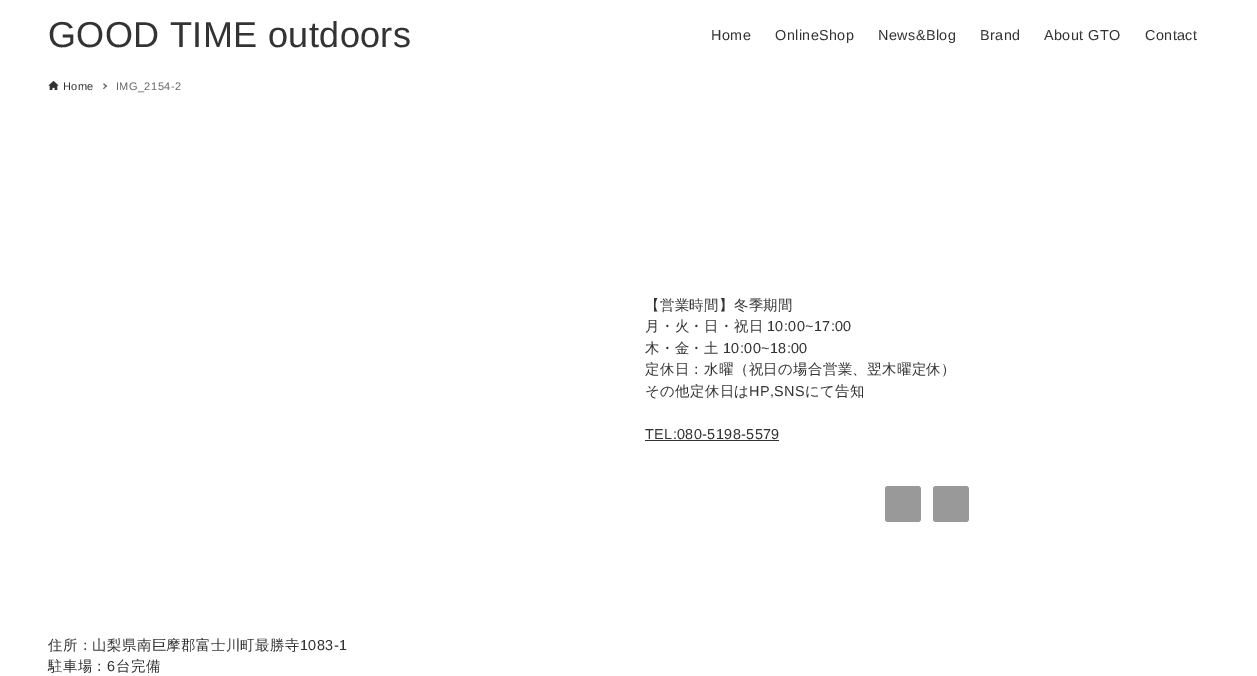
%!PS
<< /PageSize [1257 676] >> setpagedevice
/mt/moveto load def
/li/lineto load def
/cp/closepath load def
/fl/fill load def
/co { dup -16 bitshift 255 div exch dup -8 bitshift 255 and 255 div exch 255 and 255 div setrgbcolor } def
/fn { [ exch dup neg 0 0 3 -1 roll 0 0 ] selectfont } def
/bx { co rectfill } def
/rr { 5 dict begin { /r /h /w /y /x } { exch def } forall
  x r add y moveto x w add y 2 copy h add r arct x w add y h add x 1 index r arct
  x y h add x y r arct x y 2 copy exch w add exch r arct closepath end } def
/im { 5 dict begin { /h /w /y /x /name } { exch def } forall
  gsave x y translate w h scale
  w h 8 [w 0 0 h 0 0] name (r) file false 3 colorimage grestore end } def
0 676 translate 1 -1 scale
4 setmiterlimit
0 0 1257 676 16#FFFFFF bx
(media/1.raw) 48 81 11 9 im
16#666666 co
104 83.5 mt 107 86 li 106 87 li 103 84 li cp fl
106 85.5 mt 107 86 li 104 89 li 103 88.5 li cp fl
645 440 134 1 16#333333 bx
16#999999 co
885 486 36 36 3 rr fl
933 486 36 36 3 rr fl
/LiberationSans-Regular 36 fn
16#333333 co
48 47 mt .4 0 (GOOD TIME outdoors) ashow
/LiberationSans-Regular 14.4 fn
711 40 mt .4 0 (Home) ashow
775 40 mt .4 0 (OnlineShop) ashow
878 40 mt .4 0 (News&Blog) ashow
980 40 mt .4 0 (Brand) ashow
1044 40 mt .4 0 (About GTO) ashow
1145 40 mt .4 0 (Contact) ashow
/LiberationSans-Regular 11 fn
63 90 mt .4 0 (Home) ashow
16#666666 co
116 90 mt .4 0 (IMG_2154-2) ashow
/WenQuanYiZenHei-Medium 14.4 fn
16#333333 co
645 310 mt .4 0 (【営業時間】冬季期間) ashow
645 331 mt .4 0 (月・火・日・祝日) ashow
/LiberationSans-Regular 14.4 fn
767 331 mt .4 0 (10:00~17:00) ashow
/WenQuanYiZenHei-Medium 14.4 fn
645 353 mt .4 0 (木・金・土) ashow
/LiberationSans-Regular 14.4 fn
723 353 mt .4 0 (10:00~18:00) ashow
/WenQuanYiZenHei-Medium 14.4 fn
645 374 mt .4 0 (定休日：水曜（祝日の場合営業、翌木曜定休）) ashow
645 396 mt .4 0 (その他定休日は) ashow
/LiberationSans-Regular 14.4 fn
749 396 mt .4 0 (HP,SNS) ashow
/WenQuanYiZenHei-Medium 14.4 fn
805 396 mt .4 0 (にて告知) ashow
/LiberationSans-Regular 14.4 fn
645 439 mt .4 0 (TEL:080-5198-5579) ashow
/WenQuanYiZenHei-Medium 14.4 fn
48 650 mt .4 0 (住所：山梨県南巨摩郡富士川町最勝寺) ashow
/LiberationSans-Regular 14.4 fn
300 650 mt .4 0 (1083-1) ashow
/WenQuanYiZenHei-Medium 14.4 fn
48 671 mt .4 0 (駐車場：) ashow
/LiberationSans-Regular 14.4 fn
107 671 mt .4 0 (6) ashow
/WenQuanYiZenHei-Medium 14.4 fn
116 671 mt .4 0 (台完備) ashow
showpage
